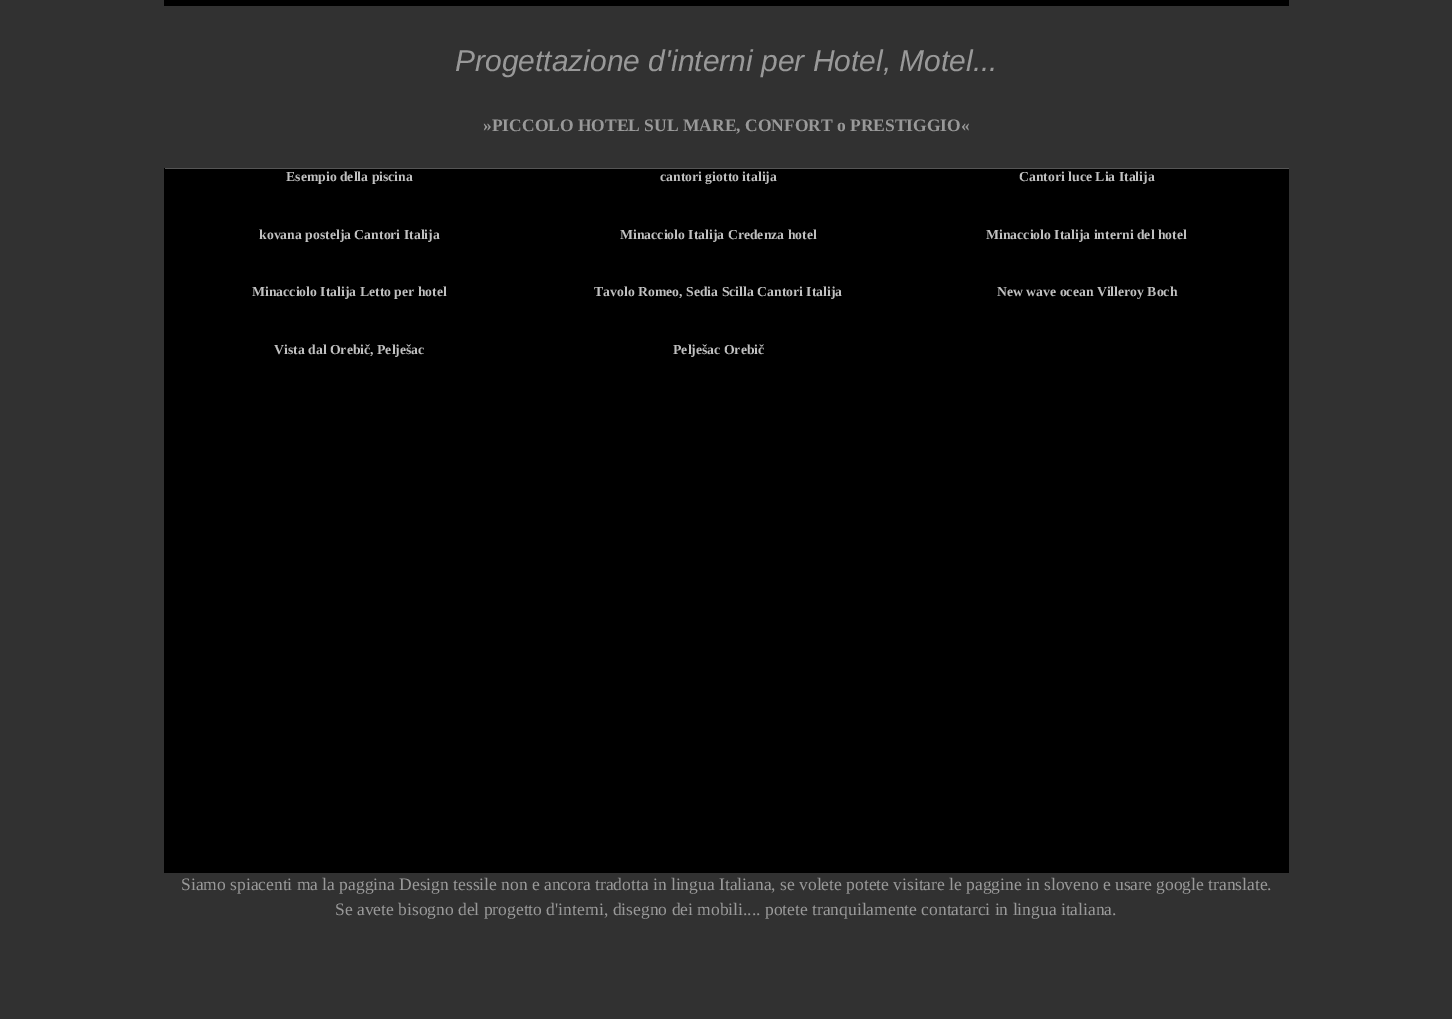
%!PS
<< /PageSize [1452 1019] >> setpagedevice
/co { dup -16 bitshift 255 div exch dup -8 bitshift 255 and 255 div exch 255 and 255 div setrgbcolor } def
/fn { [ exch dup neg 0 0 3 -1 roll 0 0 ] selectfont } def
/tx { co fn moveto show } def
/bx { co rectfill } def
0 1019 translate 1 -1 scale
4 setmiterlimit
0 0 1452 1019 16#313131 bx
164 0 1125 6 16#000000 bx
164 169 1125 704 16#000000 bx
164 168 1125 1 16#555555 bx
164 168 1 1 16#000000 bx
(Progettazione d'interni per Hotel, Motel...) 455 71 /LiberationSans-Italic 30 16#999999 tx
(»PICCOLO HOTEL SUL MARE, CONFORT o PRESTIGGIO«) 483 131 /LiberationSerif-Bold 17.5 16#999999 tx
(Esempio della piscina) 286 181 /LiberationSerif-Bold 13.75 16#C0C0C0 tx
(cantori giotto italija) 660 181 /LiberationSerif-Bold 13.75 16#C0C0C0 tx
(Cantori luce Lia Italija) 1019 181 /LiberationSerif-Bold 13.75 16#C0C0C0 tx
(kovana postelja Cantori Italija) 259 239 /LiberationSerif-Bold 13.75 16#C0C0C0 tx
(Minacciolo Italija Credenza hotel) 620 239 /LiberationSerif-Bold 13.75 16#C0C0C0 tx
(Minacciolo Italija interni del hotel) 986 239 /LiberationSerif-Bold 13.75 16#C0C0C0 tx
(Minacciolo Italija Letto per hotel) 252 296 /LiberationSerif-Bold 13.75 16#C0C0C0 tx
(Tavolo Romeo, Sedia Scilla Cantori Italija) 594 296 /LiberationSerif-Bold 13.75 16#C0C0C0 tx
(New wave ocean Villeroy Boch) 997 296 /LiberationSerif-Bold 13.75 16#C0C0C0 tx
(Vista dal Orebič, Pelješac) 274 354 /LiberationSerif-Bold 13.75 16#C0C0C0 tx
(Pelješac Orebič) 673 354 /LiberationSerif-Bold 13.75 16#C0C0C0 tx
(Siamo spiacenti ma la paggina Design tessile non e ancora tradotta in lingua Italiana, se volete potete visitare le paggine in sloveno e usare google translate.) 181 890 /LiberationSerif-Regular 17.5 16#999999 tx
(Se avete bisogno del progetto d'interni, disegno dei mobili.... potete tranquilamente contatarci in lingua italiana.) 335 915 /LiberationSerif-Regular 17.5 16#999999 tx
showpage
